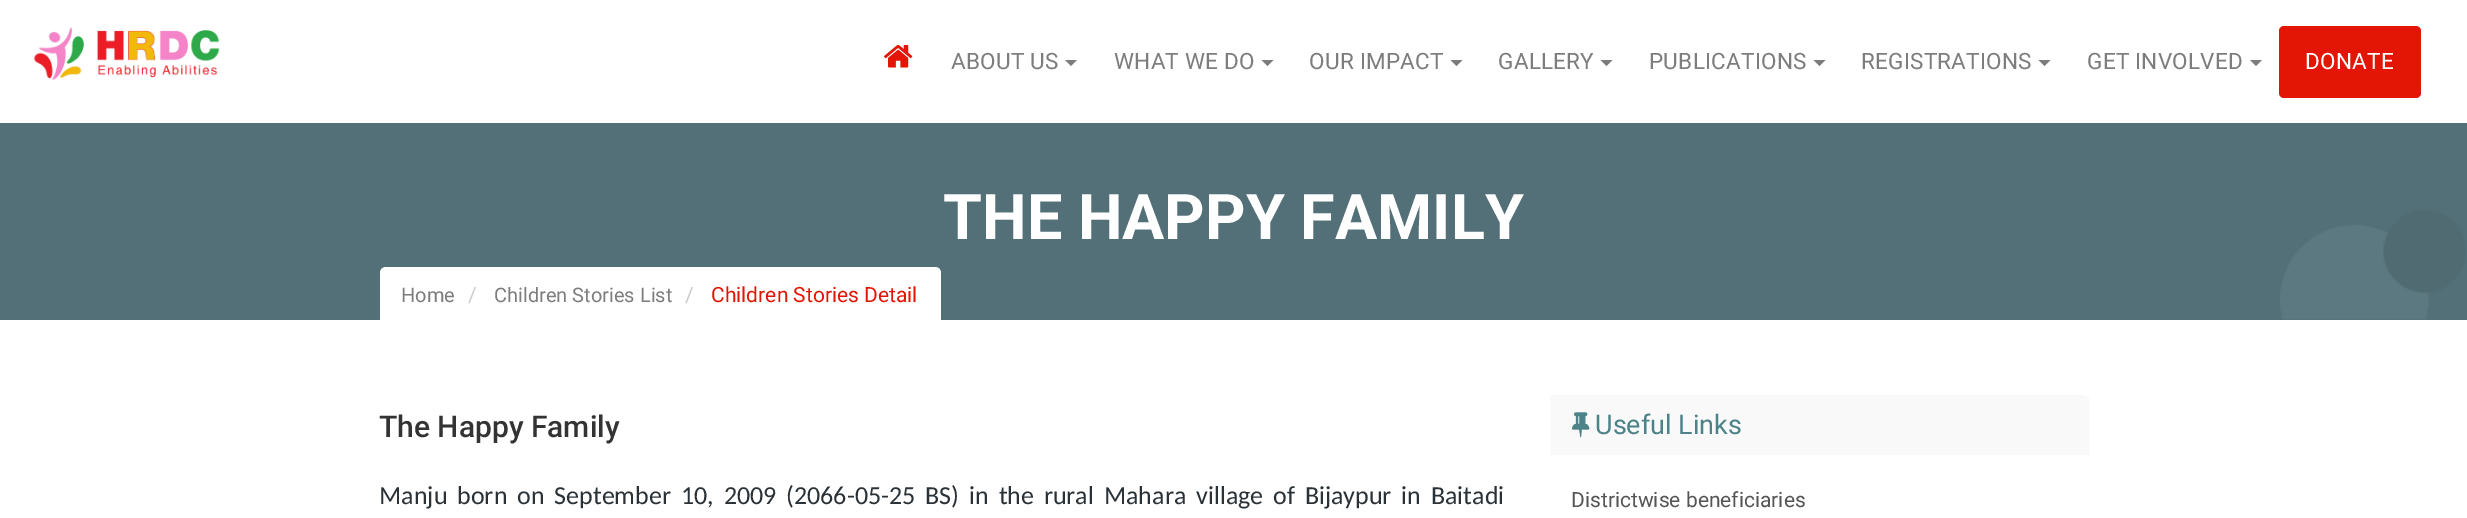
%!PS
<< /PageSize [2467 518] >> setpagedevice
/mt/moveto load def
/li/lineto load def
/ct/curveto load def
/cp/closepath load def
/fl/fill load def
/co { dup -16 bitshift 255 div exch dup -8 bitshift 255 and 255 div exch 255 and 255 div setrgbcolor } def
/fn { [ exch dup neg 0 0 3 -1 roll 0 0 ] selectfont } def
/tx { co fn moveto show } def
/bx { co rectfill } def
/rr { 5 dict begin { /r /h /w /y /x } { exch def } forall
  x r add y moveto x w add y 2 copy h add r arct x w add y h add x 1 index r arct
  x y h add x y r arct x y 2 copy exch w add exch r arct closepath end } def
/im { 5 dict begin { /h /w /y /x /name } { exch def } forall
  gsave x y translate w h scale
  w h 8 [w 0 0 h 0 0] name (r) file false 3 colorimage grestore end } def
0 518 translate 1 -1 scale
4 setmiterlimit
0 0 2467 518 16#FFFFFF bx
(media/1.raw) 34 27 186 53 im
(media/2.raw) 884 45 29 23 im
16#7C7C7C co
1065 60 mt 1077 60 li 1071 66 li cp fl
1261.5 60 mt 1273.5 60 li 1267.5 66 li cp fl
1450.5 60 mt 1462.5 60 li 1456.5 66 li cp fl
1600.5 60 mt 1612.5 60 li 1606.5 66 li cp fl
1813.5 60 mt 1825.5 60 li 1819.5 66 li cp fl
2038.5 60 mt 2050.5 60 li 2044.5 66 li cp fl
2250 60 mt 2262 60 li 2256 66 li cp fl
16#E31606 co
2279 26 142 72 5 rr fl
0 123 2467 197 16#536F77 bx
(media/3.raw) 2280 210 186 110 im
16#FFFFFF co
386 267 mt 935 267 li 938.5 267 941 269.5 941 273 ct 941 323 li 380 323 li 380 273 li 380 269.5 382.5 267 386 267 ct cp fl
16#F9F9F9 co
1550 395 mt 2082 395 li 2086.5 395 2090 398.5 2090 403 ct 2090 455 li 1550 455 li cp fl
(media/4.raw) 1572 412 18 26 im
/Roboto-Regular 22.5 fn
16#7D7D7D co
951 69 mt .25 0 (ABOUT US) ashow
1114 69 mt .25 0 (WHAT WE DO) ashow
1309 69 mt .25 0 (OUR IMPACT) ashow
1498 69 mt .25 0 (GALLERY) ashow
1649 69 mt .25 0 (PUBLICATIONS) ashow
1861 69 mt .25 0 (REGISTRATIONS) ashow
2087 69 mt .25 0 (GET INVOLVED) ashow
16#FFFFFF co
2305 69 mt .25 0 (DONATE) ashow
(THE HAPPY FAMILY) 943 239 /Roboto-Bold 63 16#FFFFFF tx
(Home) 401 302 /Roboto-Regular 20 16#7D7D7D tx
(/) 468 302 /Roboto-Regular 21 16#CCCCCC tx
(Children Stories List) 494 302 /Roboto-Regular 20 16#7D7D7D tx
(/) 685 302 /Roboto-Regular 21 16#CCCCCC tx
(Children Stories Detail) 711 302 /Roboto-Regular 21 16#E31606 tx
(The Happy Family) 379 437 /Roboto-Medium 30 16#333333 tx
/Carlito-Regular 26 fn
16#2A3237 co
379 504 mt 4 0 32 (Manju born on September 10, 2009 \(2066-05-25 BS\) in the rural Mahara village of Bijaypur in Baitadi) widthshow
(Useful Links) 1595 434 /Roboto-Regular 27 16#4D8288 tx
(Districtwise beneficiaries) 1571 507 /Roboto-Regular 21 16#555555 tx
showpage
